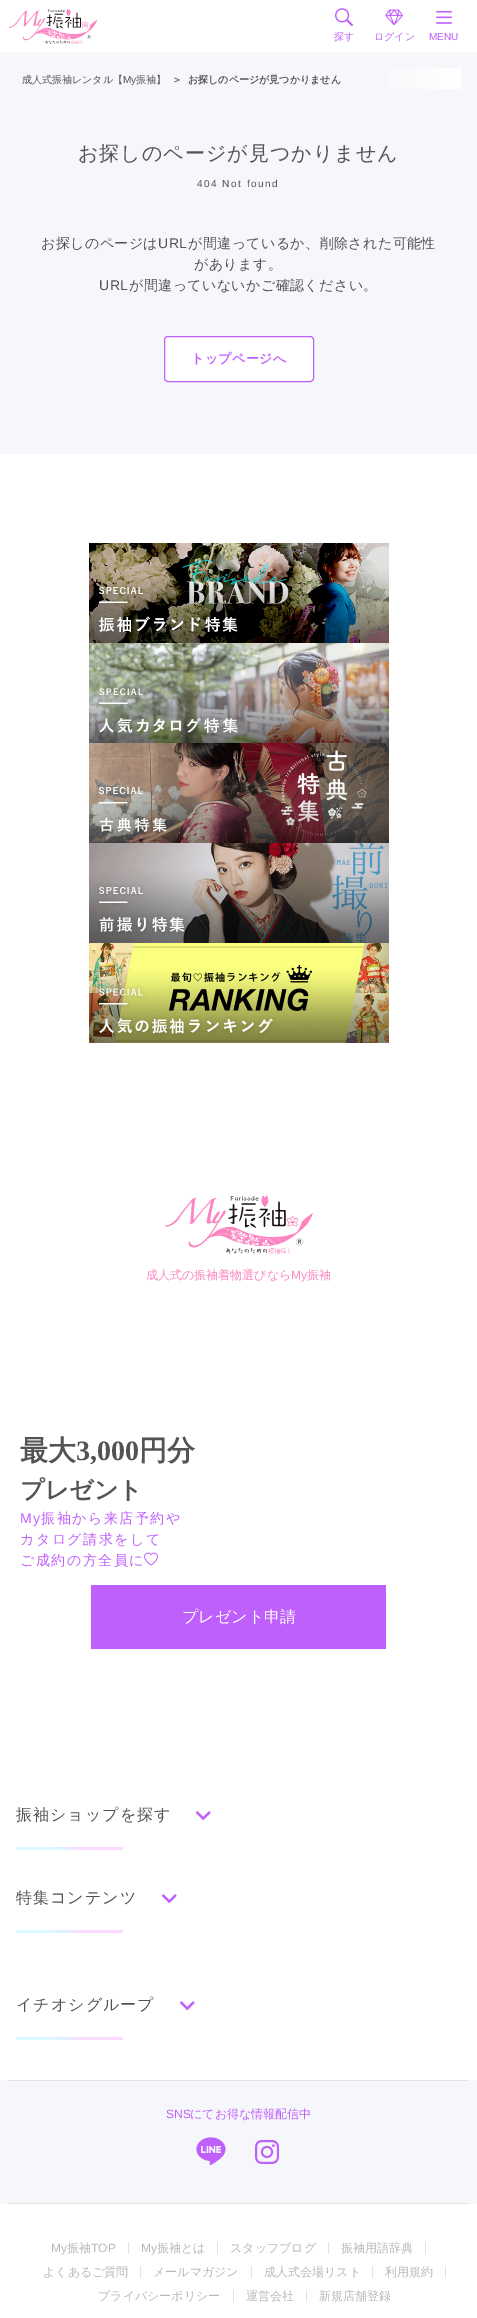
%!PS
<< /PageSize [477 2318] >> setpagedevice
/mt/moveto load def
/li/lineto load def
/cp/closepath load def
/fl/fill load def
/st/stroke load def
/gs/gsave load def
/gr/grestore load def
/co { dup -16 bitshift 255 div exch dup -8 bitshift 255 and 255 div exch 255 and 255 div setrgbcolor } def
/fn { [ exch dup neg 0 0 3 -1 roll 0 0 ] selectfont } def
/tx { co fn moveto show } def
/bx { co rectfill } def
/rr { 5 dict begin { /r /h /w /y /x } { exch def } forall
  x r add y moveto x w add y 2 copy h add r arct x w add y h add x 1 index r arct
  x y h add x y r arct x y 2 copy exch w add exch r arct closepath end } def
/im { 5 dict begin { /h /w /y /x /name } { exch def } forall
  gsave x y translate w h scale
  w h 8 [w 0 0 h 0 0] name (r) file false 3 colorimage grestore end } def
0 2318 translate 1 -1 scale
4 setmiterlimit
0 0 477 2318 16#FFFFFF bx
(media/1.raw) 8 9 90 35 im
(media/2.raw) 335 8 18 19 im
(media/3.raw) 385 9 18 17 im
(media/4.raw) 436 10 16 14 im
0 52 477 402 16#F6F7FB bx
gs 389 68 mt 461 68 li 461 89 li 389 89 li cp clip newpath
<< /ShadingType 2 /ColorSpace /DeviceRGB /Coords [361 79 461 79] /Extend [true true] /Function << /FunctionType 2 /Domain [0 1] /C0 [.965 .969 .984] /C1 [1 1 1] /N 1 >> >> shfill gr
16#FFFFFF co
164.5 336.5 149 45 3.5 rr gs fl gr
16#C060FC co
st
(media/5.raw) 89 543 300 100 im
(media/6.raw) 89 643 300 100 im
(media/7.raw) 89 743 300 100 im
(media/8.raw) 89 843 300 100 im
(media/9.raw) 89 943 300 100 im
(media/10.raw) 165 1195 148 59 im
(media/11.raw) 144 1552 14 14 im
gs 91 1585 295 64 3 rr clip newpath
<< /ShadingType 2 /ColorSpace /DeviceRGB /Coords [-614 1617 386 1617] /Extend [true true] /Function << /FunctionType 3 /Domain [0 1] /Functions [<< /FunctionType 2 /Domain [0 1] /C0 [.667 .918 .996] /C1 [.894 .663 .988] /N 1 >> << /FunctionType 2 /Domain [0 1] /C0 [.894 .663 .988] /C1 [.753 .376 .988] /N 1 >> << /FunctionType 2 /Domain [0 1] /C0 [.753 .376 .988] /C1 [.753 .376 .988] /N 1 >>] /Bounds [.29 .65] /Encode [0 1 0 1 0 1] >> >> shfill gr
(media/12.raw) 196 1811 15 10 im
gs 16 1847 mt 123 1847 li 123 1850 li 16 1850 li cp clip newpath
<< /ShadingType 2 /ColorSpace /DeviceRGB /Coords [69 1851 70 1846] /Extend [true true] /Function << /FunctionType 2 /Domain [0 1] /C0 [.859 .969 1] /C1 [.984 .859 1] /N 1 >> >> shfill gr
(media/12.raw) 162 1894 15 10 im
gs 16 1930 mt 123 1930 li 123 1933 li 16 1933 li cp clip newpath
<< /ShadingType 2 /ColorSpace /DeviceRGB /Coords [69 1934 70 1929] /Extend [true true] /Function << /FunctionType 2 /Domain [0 1] /C0 [.859 .969 1] /C1 [.984 .859 1] /N 1 >> >> shfill gr
(media/12.raw) 180 2001 15 10 im
gs 16 2037 mt 123 2037 li 123 2040 li 16 2040 li cp clip newpath
<< /ShadingType 2 /ColorSpace /DeviceRGB /Coords [69 2041 70 2036] /Extend [true true] /Function << /FunctionType 2 /Domain [0 1] /C0 [.859 .969 1] /C1 [.984 .859 1] /N 1 >> >> shfill gr
0 2080 477 124 16#F6F7FB bx
8 2080 461 1 16#E4E4E4 bx
8 2203 461 1 16#E4E4E4 bx
(media/13.raw) 196 2137 30 29 im
(media/14.raw) 255 2140 24 24 im
128 2242 1 12 16#E4E4E4 bx
217 2242 1 12 16#E4E4E4 bx
328 2242 1 12 16#E4E4E4 bx
425 2242 1 12 16#E4E4E4 bx
140 2266 1 12 16#E4E4E4 bx
251 2266 1 12 16#E4E4E4 bx
372 2266 1 12 16#E4E4E4 bx
445 2266 1 12 16#E4E4E4 bx
233 2290 1 12 16#E4E4E4 bx
306 2290 1 12 16#E4E4E4 bx
(探す) 334 40 /WenQuanYiZenHei-Medium 10 16#C060FC tx
(ログイン) 374 40 /WenQuanYiZenHei-Medium 10 16#C060FC tx
(MENU) 429 40 /LiberationSans-Regular 10 16#C060FC tx
(成人式振袖レンタル【) 22 83 /WenQuanYiZenHei-Medium 10 16#535353 tx
(My) 123 83 /LiberationSans-Regular 10 16#535353 tx
(振袖】) 136 83 /WenQuanYiZenHei-Medium 10 16#535353 tx
(＞) 172 83 /WenQuanYiZenHei-Bold 10 16#535353 tx
(お探しのページが見つかりません) 188 83 /WenQuanYiZenHei-Bold 10 16#535353 tx
/WenQuanYiZenHei-Medium 20 fn
78 160 mt 1 0 (お探しのページが見つかりません) ashow
/LiberationSans-Regular 10 fn
197 187 mt 1.5 0 (404 Not found) ashow
/WenQuanYiZenHei-Medium 14 fn
41 248 mt .4 0 (お探しのページは) ashow
/LiberationSans-Regular 14 fn
158 248 mt .4 0 (URL) ashow
/WenQuanYiZenHei-Medium 14 fn
188 248 mt .4 0 (が間違っているか、削除された可能性) ashow
194 269 mt .4 0 (があります。) ashow
/LiberationSans-Regular 14 fn
99 290 mt .4 0 (URL) ashow
/WenQuanYiZenHei-Medium 14 fn
129 290 mt .4 0 (が間違っていないかご確認ください。) ashow
/WenQuanYiZenHei-Bold 13 fn
16#C060FC co
191 363 mt .4 0 (トップページへ) ashow
(成人式の振袖着物選びなら) 146 1279 /WenQuanYiZenHei-Medium 12 16#FC85C1 tx
(My) 291 1279 /LiberationSans-Regular 12 16#FC85C1 tx
(振袖) 307 1279 /WenQuanYiZenHei-Medium 12 16#FC85C1 tx
(最大) 20 1460 /WenQuanYiZenHei-Bold 28 16#535353 tx
(3,000) 76 1460 /LiberationSerif-Bold 28 16#535353 tx
(円分) 139 1460 /WenQuanYiZenHei-Bold 28 16#535353 tx
(プレゼント) 20 1498 /WenQuanYiZenHei-Bold 24 16#535353 tx
/LiberationSans-Regular 14 fn
16#C060FC co
20 1523 mt 1.5 0 (My) ashow
/WenQuanYiZenHei-Medium 14 fn
41 1523 mt 1.5 0 (振袖から来店予約や) ashow
20 1544 mt 1.5 0 (カタログ請求をして) ashow
20 1565 mt 1.5 0 (ご成約の方全員に) ashow
(プレゼント申請) 182 1622 /WenQuanYiZenHei-Medium 16 16#FFFFFF tx
16#535353 co
16 1820 mt 1 0 (振袖ショップを探す) ashow
16 1903 mt 1 0 (特集コンテンツ) ashow
16 2010 mt 1 0 (イチオシグループ) ashow
(SNS) 166 2118 /LiberationSans-Regular 12 16#C060FC tx
(にてお得な情報配信中) 190 2118 /WenQuanYiZenHei-Medium 12 16#C060FC tx
(My) 51 2252 /LiberationSans-Regular 12 16#B8B8B8 tx
(振袖) 67 2252 /WenQuanYiZenHei-Medium 12 16#B8B8B8 tx
(TOP) 91 2252 /LiberationSans-Regular 12 16#B8B8B8 tx
(My) 141 2252 /LiberationSans-Regular 12 16#B8B8B8 tx
(振袖とは) 157 2252 /WenQuanYiZenHei-Medium 12 16#B8B8B8 tx
(スタッフブログ) 230 2252 /WenQuanYiZenHei-Medium 12 16#B8B8B8 tx
(振袖用語辞典) 341 2252 /WenQuanYiZenHei-Medium 12 16#B8B8B8 tx
(よくあるご質問) 43 2276 /WenQuanYiZenHei-Medium 12 16#B8B8B8 tx
(メールマガジン) 153 2276 /WenQuanYiZenHei-Medium 12 16#B8B8B8 tx
(成人式会場リスト) 264 2276 /WenQuanYiZenHei-Medium 12 16#B8B8B8 tx
(利用規約) 385 2276 /WenQuanYiZenHei-Medium 12 16#B8B8B8 tx
(プライバシーポリシー) 98 2300 /WenQuanYiZenHei-Medium 12 16#B8B8B8 tx
(運営会社) 246 2300 /WenQuanYiZenHei-Medium 12 16#B8B8B8 tx
(新規店舗登録) 319 2300 /WenQuanYiZenHei-Medium 12 16#B8B8B8 tx
showpage
